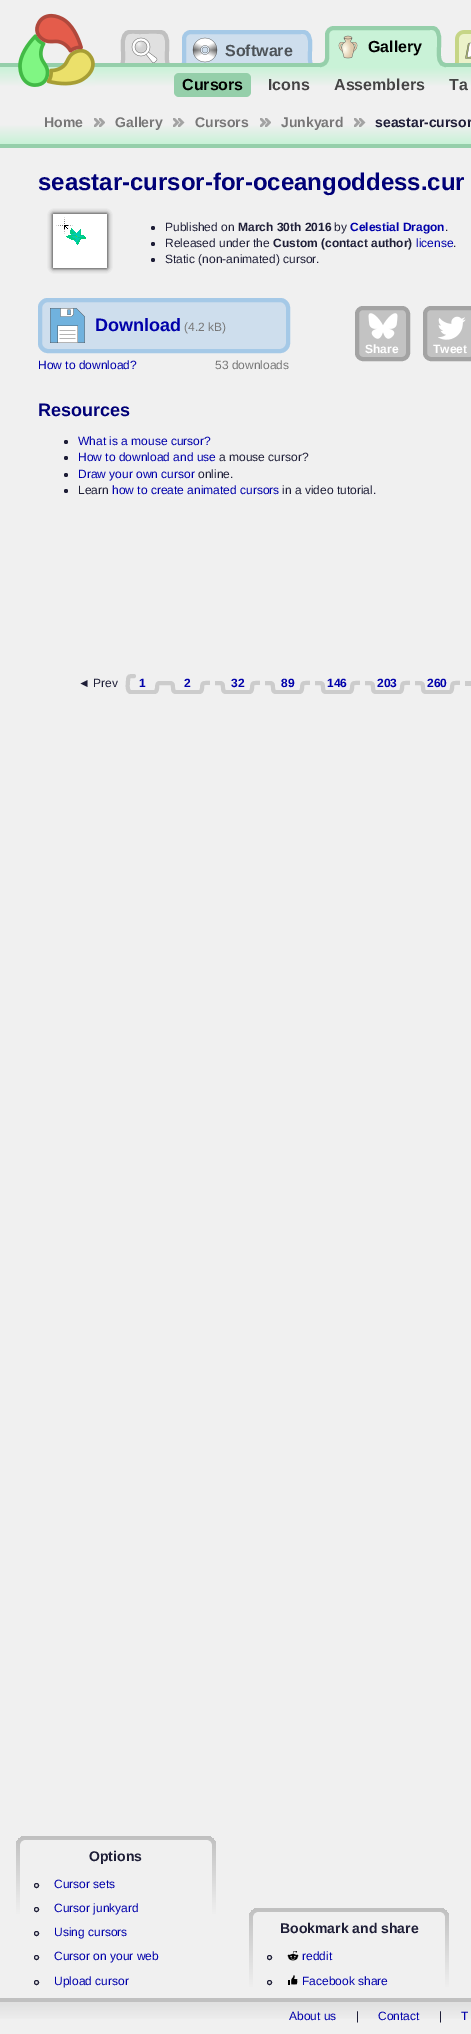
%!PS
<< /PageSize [471 2034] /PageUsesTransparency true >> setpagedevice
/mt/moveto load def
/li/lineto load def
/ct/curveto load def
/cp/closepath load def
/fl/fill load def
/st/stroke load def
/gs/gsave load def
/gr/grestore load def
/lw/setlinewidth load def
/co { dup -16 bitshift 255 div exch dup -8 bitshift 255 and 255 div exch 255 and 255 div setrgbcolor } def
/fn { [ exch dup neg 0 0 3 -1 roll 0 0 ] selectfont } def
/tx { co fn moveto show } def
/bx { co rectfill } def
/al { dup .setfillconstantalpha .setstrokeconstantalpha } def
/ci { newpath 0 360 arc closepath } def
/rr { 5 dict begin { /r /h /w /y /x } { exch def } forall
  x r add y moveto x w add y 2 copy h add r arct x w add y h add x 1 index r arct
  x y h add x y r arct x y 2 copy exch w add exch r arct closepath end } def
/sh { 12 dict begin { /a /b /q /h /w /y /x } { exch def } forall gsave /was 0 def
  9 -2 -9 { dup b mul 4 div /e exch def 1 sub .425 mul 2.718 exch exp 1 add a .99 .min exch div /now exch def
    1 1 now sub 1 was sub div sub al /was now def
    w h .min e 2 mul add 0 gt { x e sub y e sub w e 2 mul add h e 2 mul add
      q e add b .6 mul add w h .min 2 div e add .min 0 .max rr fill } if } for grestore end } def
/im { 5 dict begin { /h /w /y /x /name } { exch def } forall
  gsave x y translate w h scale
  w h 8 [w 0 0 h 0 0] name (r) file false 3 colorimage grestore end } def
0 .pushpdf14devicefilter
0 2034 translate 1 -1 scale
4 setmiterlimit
0 0 471 2034 16#F0F0F0 bx
16#E0E0E0 co
116 69 mt 131 69 116 37 127 33 ct 131 31 136 32 140 32 ct 145 32 159 31 163 33 ct 174 37 159 69 174 69 ct 174 72 li 116 72 li cp fl
gs
116 30 58 42 rectclip
16#C0C0C0 co
4 lw
116 69 mt 131 69 116 37.5 127.5 32.5 ct 131 31 136 32 140 32 ct 144.5 32 159 31 162.5 32.5 ct 174 37.5 159 69 174 69 ct st
gr
16#CEDEED co
267 32 mt 291 32 li 295 32 301 31 306 33 ct 317 37 302 69 317 69 ct 317 72 li 267 72 li cp fl
gs
267 30 50 42 rectclip
16#A5C9E7 co
4 lw
267 32 mt 291 32 li 295.5 32 301.5 31 305.5 32.5 ct 317 37.5 302 69 317 69 ct st
gr
gs
177 30 124 42 rectclip
177 72 mt 177 69 li 181 69 184 66 184 62 ct 184 39 li 184 35 187 32 191 32 ct 377 32 li 377 72 li cp fl
16#A5C9E7 co
4 lw
177 69 mt 181 69 184 66 184 62 ct 184 39 li 184 35 187 32 191 32 ct 377 32 li st
gr
gs 0 63 mt 471 63 li 471 86 li 0 86 li cp clip newpath
<< /ShadingType 2 /ColorSpace /DeviceRGB /Coords [463 63 463 113] /Extend [true true] /Function << /FunctionType 3 /Domain [0 1] /Functions [<< /FunctionType 2 /Domain [0 1] /C0 [.584 .812 .667] /C1 [.584 .812 .667] /N 1 >> << /FunctionType 2 /Domain [0 1] /C0 [.788 .949 .843] /C1 [.941 .941 .941] /N 1 >> << /FunctionType 2 /Domain [0 1] /C0 [.941 .941 .941] /C1 [.941 .941 .941] /N 1 >>] /Bounds [.08 .48] /Encode [0 1 0 1 0 1] >> >> shfill gr
(media/1.raw) 18 13 77 74 im
(media/2.raw) 131 37 27 26 im
(media/3.raw) 454 30 17 33 im
(media/4.raw) 465 42 6 17 im
16#C9F2D7 co
396 28 mt 420 28 li 424 28 430 27 435 29 ct 446 33 431 65 446 65 ct 446 68 li 396 68 li cp fl
gs
396 26 50 42 rectclip
16#95CFAA co
4 lw
396 28 mt 420 28 li 424.5 28 430.5 27 434.5 28.5 ct 446 33.5 431 65 446 65 ct st
gr
gs
320 26 110 42 rectclip
320 68 mt 320 65 li 324 65 327 62 327 58 ct 327 35 li 327 31 330 28 334 28 ct 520 28 li 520 68 li cp fl
16#95CFAA co
4 lw
320 65 mt 324 65 327 62 327 58 ct 327 35 li 327 31 330 28 334 28 ct 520 28 li st
gr
(media/5.raw) 338 35 20 24 im
16#95CFAA co
174 73 77 24 5 rr fl
(media/6.raw) 192 37 26 26 im
gs 0 125 mt 471 125 li 471 144 li 0 144 li cp clip newpath
<< /ShadingType 2 /ColorSpace /DeviceRGB /Coords [463 144 463 72] /Extend [true true] /Function << /FunctionType 3 /Domain [0 1] /Functions [<< /FunctionType 2 /Domain [0 1] /C0 [.788 .949 .843] /C1 [.941 .941 .941] /N 1 >> << /FunctionType 2 /Domain [0 1] /C0 [.941 .941 .941] /C1 [.941 .941 .941] /N 1 >>] /Bounds [.28] /Encode [0 1 0 1] >> >> shfill gr
0 144 471 4 16#95CFAA bx
(media/7.raw) 94 118 11 9 im
(media/8.raw) 173 118 12 9 im
(media/7.raw) 260 118 11 9 im
(media/8.raw) 354 118 12 9 im
16#000000 co
53 214 54 54 0 2.5 1 sh
53 214 54 54 16#FFFFFF bx
(media/9.raw) 56 217 30 28 im
16#1E1E37 co
153 228 2 ci fl
153 244 2 ci fl
153 260 2 ci fl
16#CEDEED co
38 298 252 55 10 rr fl
(media/10.raw) 50 308 35 35 im
16#A5C9E7 co
4 lw
40 300 248 51 8 rr st
16#C3C3C3 co
357 308 51 51 6 rr gs fl gr
16#A3A3A3 co
st
(media/11.raw) 368 313 30 26 im
16#C3C3C3 co
425 308 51 51 6 rr gs fl gr
16#A3A3A3 co
st
(media/12.raw) 438 316 28 24 im
16#1E1E37 co
66 442 2 ci fl
66 458 2 ci fl
66 475 2 ci fl
66 491 2 ci fl
gs
120 674 45 20 rectclip
16#CCCCCC co
1 setlinecap
134 676 mt 129.5 676 128 676 128 680.5 ct 128 683.5 126.5 691 130.5 692 ct 155 692 li 159 690 155 683 160 683 ct 170.5 683 li 175.5 684 170.5 691 175.5 692 ct 200 692 li 204 690 200 683 205 683 ct 207.5 683 216 682 217.5 684.5 ct 219 686.5 216.5 690.5 220 692 ct 245 692 li 248 690.5 247 686.5 247 684 ct 247 677.5 248 676 241 676 ct st
gr
gs
165 674 45 20 rectclip
16#CCCCCC co
1 setlinecap
134 676 mt 129.5 676 128 676 128 680.5 ct 128 683.5 126.5 691 130.5 692 ct 155 692 li 159 690 155 683 160 683 ct 170.5 683 li 175.5 684 170.5 691 175.5 692 ct 200 692 li 204 690 200 683 205 683 ct 207.5 683 216 682 217.5 684.5 ct 219 686.5 216.5 690.5 220 692 ct 245 692 li 248 690.5 247 686.5 247 684 ct 247 677.5 248 676 241 676 ct st
gr
gs
215 674 45 20 rectclip
16#CCCCCC co
1 setlinecap
184 676 mt 179.5 676 178 676 178 680.5 ct 178 683.5 176.5 691 180.5 692 ct 205 692 li 209 690 205 683 210 683 ct 220.5 683 li 225.5 684 220.5 691 225.5 692 ct 250 692 li 254 690 250 683 255 683 ct 257.5 683 266 682 267.5 684.5 ct 269 686.5 266.5 690.5 270 692 ct 295 692 li 298 690.5 297 686.5 297 684 ct 297 677.5 298 676 291 676 ct st
gr
gs
265 674 45 20 rectclip
16#CCCCCC co
1 setlinecap
234 676 mt 229.5 676 228 676 228 680.5 ct 228 683.5 226.5 691 230.5 692 ct 255 692 li 259 690 255 683 260 683 ct 270.5 683 li 275.5 684 270.5 691 275.5 692 ct 300 692 li 304 690 300 683 305 683 ct 307.5 683 316 682 317.5 684.5 ct 319 686.5 316.5 690.5 320 692 ct 345 692 li 348 690.5 347 686.5 347 684 ct 347 677.5 348 676 341 676 ct st
gr
gs
315 674 45 20 rectclip
16#CCCCCC co
1 setlinecap
284 676 mt 279.5 676 278 676 278 680.5 ct 278 683.5 276.5 691 280.5 692 ct 305 692 li 309 690 305 683 310 683 ct 320.5 683 li 325.5 684 320.5 691 325.5 692 ct 350 692 li 354 690 350 683 355 683 ct 357.5 683 366 682 367.5 684.5 ct 369 686.5 366.5 690.5 370 692 ct 395 692 li 398 690.5 397 686.5 397 684 ct 397 677.5 398 676 391 676 ct st
gr
gs
365 674 45 20 rectclip
16#CCCCCC co
1 setlinecap
334 676 mt 329.5 676 328 676 328 680.5 ct 328 683.5 326.5 691 330.5 692 ct 355 692 li 359 690 355 683 360 683 ct 370.5 683 li 375.5 684 370.5 691 375.5 692 ct 400 692 li 404 690 400 683 405 683 ct 407.5 683 416 682 417.5 684.5 ct 419 686.5 416.5 690.5 420 692 ct 445 692 li 448 690.5 447 686.5 447 684 ct 447 677.5 448 676 441 676 ct st
gr
gs
415 674 45 20 rectclip
16#CCCCCC co
1 setlinecap
384 676 mt 379.5 676 378 676 378 680.5 ct 378 683.5 376.5 691 380.5 692 ct 405 692 li 409 690 405 683 410 683 ct 420.5 683 li 425.5 684 420.5 691 425.5 692 ct 450 692 li 454 690 450 683 455 683 ct 457.5 683 466 682 467.5 684.5 ct 469 686.5 466.5 690.5 470 692 ct 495 692 li 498 690.5 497 686.5 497 684 ct 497 677.5 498 676 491 676 ct st
gr
465 681 6 5 16#CCCCCC bx
gs 26 1836 mt 206 1836 li 211.5 1836 216 1840.5 216 1846 ct 216 1998 li 16 1998 li 16 1846 li 16 1840.5 20.5 1836 26 1836 ct cp clip newpath
<< /ShadingType 2 /ColorSpace /DeviceRGB /Coords [116 1836 116 1998] /Extend [true true] /Function << /FunctionType 3 /Domain [0 1] /Functions [<< /FunctionType 2 /Domain [0 1] /C0 [.753 .753 .753] /C1 [.941 .941 .941] /N 1 >> << /FunctionType 2 /Domain [0 1] /C0 [.941 .941 .941] /C1 [.941 .941 .941] /N 1 >>] /Bounds [.49] /Encode [0 1 0 1] >> >> shfill gr
16#F0F0F0 co
26 1840 mt 206 1840 li 209.5 1840 212 1842.5 212 1846 ct 212 1998 li 20 1998 li 20 1846 li 20 1842.5 22.5 1840 26 1840 ct cp fl
16#1E1E37 co
1 lw
36.5 1885.5 2 ci st
36.5 1909.5 2 ci st
36.5 1933.5 2 ci st
36.5 1957.5 2 ci st
36.5 1982.5 2 ci st
gs 259 1908 mt 439 1908 li 444.5 1908 449 1912.5 449 1918 ct 449 1998 li 249 1998 li 249 1918 li 249 1912.5 253.5 1908 259 1908 ct cp clip newpath
<< /ShadingType 2 /ColorSpace /DeviceRGB /Coords [349 1908 349 1998] /Extend [true true] /Function << /FunctionType 3 /Domain [0 1] /Functions [<< /FunctionType 2 /Domain [0 1] /C0 [.753 .753 .753] /C1 [.941 .941 .941] /N 1 >> << /FunctionType 2 /Domain [0 1] /C0 [.941 .941 .941] /C1 [.941 .941 .941] /N 1 >>] /Bounds [.89] /Encode [0 1 0 1] >> >> shfill gr
16#F0F0F0 co
259 1912 mt 439 1912 li 442.5 1912 445 1914.5 445 1918 ct 445 1998 li 253 1998 li 253 1918 li 253 1914.5 255.5 1912 259 1912 ct cp fl
16#1E1E37 co
269.5 1957.5 2 ci st
(media/13.raw) 287 1951 12 10 im
269.5 1982.5 2 ci st
(media/14.raw) 288 1975 10 10 im
gs 0 1998 mt 471 1998 li 471 2019 li 0 2019 li cp clip newpath
<< /ShadingType 2 /ColorSpace /DeviceRGB /Coords [463 1998 463 2034] /Extend [true true] /Function << /FunctionType 3 /Domain [0 1] /Functions [<< /FunctionType 2 /Domain [0 1] /C0 [.753 .753 .753] /C1 [.753 .753 .753] /N 1 >> << /FunctionType 2 /Domain [0 1] /C0 [.878 .878 .878] /C1 [.941 .941 .941] /N 1 >> << /FunctionType 2 /Domain [0 1] /C0 [.941 .941 .941] /C1 [.941 .941 .941] /N 1 >>] /Bounds [.11 .67] /Encode [0 1 0 1 0 1] >> >> shfill gr
(Gallery) 368 52 /LiberationSans-Bold 16 16#000000 tx
(Cursors) 182 90 /LiberationSans-Bold 16 16#000000 tx
(Icons) 268 90 /LiberationSans-Bold 16 16#444444 tx
(Assemblers) 334 90 /LiberationSans-Bold 16 16#444444 tx
(Ta) 449 90 /LiberationSans-Bold 16 16#444444 tx
(Software) 225 56 /LiberationSans-Bold 16 16#4D5358 tx
(Home) 44 127 /LiberationSans-Bold 14 16#777777 tx
(Gallery) 115 127 /LiberationSans-Bold 14 16#777777 tx
(Cursors) 195 127 /LiberationSans-Bold 14 16#777777 tx
(Junkyard) 281 127 /LiberationSans-Bold 14 16#777777 tx
(seastar-cursor) 375 127 /LiberationSans-Bold 14 16#1E1E37 tx
(seastar-cursor-for-oceangoddess.cur) 38 190 /LiberationSans-Bold 24 16#000077 tx
(Published on) 165 231 /LiberationSans-Regular 12 16#1E1E37 tx
(March 30th 2016) 238 231 /LiberationSans-Bold 12 16#1E1E37 tx
(by) 334 231 /LiberationSans-Regular 12 16#1E1E37 tx
(Celestial Dragon) 350 231 /LiberationSans-Bold 12 16#0000AA tx
(.) 445 231 /LiberationSans-Regular 12 16#1E1E37 tx
(Released under the) 165 247 /LiberationSans-Regular 12 16#1E1E37 tx
(Custom \(contact author\)) 273 247 /LiberationSans-Bold 12 16#1E1E37 tx
(license) 416 247 /LiberationSans-Regular 12 16#0000AA tx
(.) 453 247 /LiberationSans-Regular 12 16#1E1E37 tx
(Static \(non-animated\) cursor.) 165 263 /LiberationSans-Regular 12 16#1E1E37 tx
(Download) 95 331 /LiberationSans-Bold 18 16#0000AA tx
(\(4.2 kB\)) 184 331 /LiberationSans-Regular 12 16#777777 tx
(How to download?) 38 369 /LiberationSans-Regular 12 16#0000AA tx
(53 downloads) 215 369 /LiberationSans-Regular 12 16#777777 tx
(Share) 365 353 /LiberationSans-Bold 12 16#FFFFFF tx
(Tweet) 433 353 /LiberationSans-Bold 12 16#FFFFFF tx
(Resources) 38 416 /LiberationSans-Bold 18 16#000077 tx
(What is a mouse cursor?) 78 445 /LiberationSans-Regular 12 16#0000AA tx
(How to download and use) 78 461 /LiberationSans-Regular 12 16#0000AA tx
(a mouse cursor?) 219 461 /LiberationSans-Regular 12 16#1E1E37 tx
(Draw your own cursor) 78 478 /LiberationSans-Regular 12 16#0000AA tx
(online.) 198 478 /LiberationSans-Regular 12 16#1E1E37 tx
(Learn) 78 494 /LiberationSans-Regular 12 16#1E1E37 tx
(how to create animated cursors) 112 494 /LiberationSans-Regular 12 16#0000AA tx
(in a video tutorial.) 282 494 /LiberationSans-Regular 12 16#1E1E37 tx
(◄ Prev) 78 687 /LiberationSans-Regular 12 16#1E1E37 tx
(1) 139 687 /LiberationSans-Bold 12 16#0000AA tx
(2) 184 687 /LiberationSans-Bold 12 16#0000AA tx
(32) 231 687 /LiberationSans-Bold 12 16#0000AA tx
(89) 281 687 /LiberationSans-Bold 12 16#0000AA tx
(146) 327 687 /LiberationSans-Bold 12 16#0000AA tx
(203) 377 687 /LiberationSans-Bold 12 16#0000AA tx
(260) 427 687 /LiberationSans-Bold 12 16#0000AA tx
(Options) 89 1861 /LiberationSans-Bold 14 16#1E1E37 tx
(Cursor sets) 54 1888 /LiberationSans-Regular 12 16#0000AA tx
(Cursor junkyard) 54 1912 /LiberationSans-Regular 12 16#0000AA tx
(Using cursors) 54 1936 /LiberationSans-Regular 12 16#0000AA tx
(Cursor on your web) 54 1960 /LiberationSans-Regular 12 16#0000AA tx
(Upload cursor) 54 1985 /LiberationSans-Regular 12 16#0000AA tx
(Bookmark and share) 280 1933 /LiberationSans-Bold 14 16#1E1E37 tx
(reddit) 302 1960 /LiberationSans-Regular 12 16#0000AA tx
(Facebook share) 302 1985 /LiberationSans-Regular 12 16#0000AA tx
(About us) 289 2020 /LiberationSans-Regular 12 16#0000AA tx
(|) 356 2020 /LiberationSans-Regular 12 16#1E1E37 tx
(Contact) 378 2020 /LiberationSans-Regular 12 16#0000AA tx
(|) 439 2020 /LiberationSans-Regular 12 16#1E1E37 tx
(T) 461 2020 /LiberationSans-Regular 12 16#0000AA tx
.poppdf14devicefilter showpage
